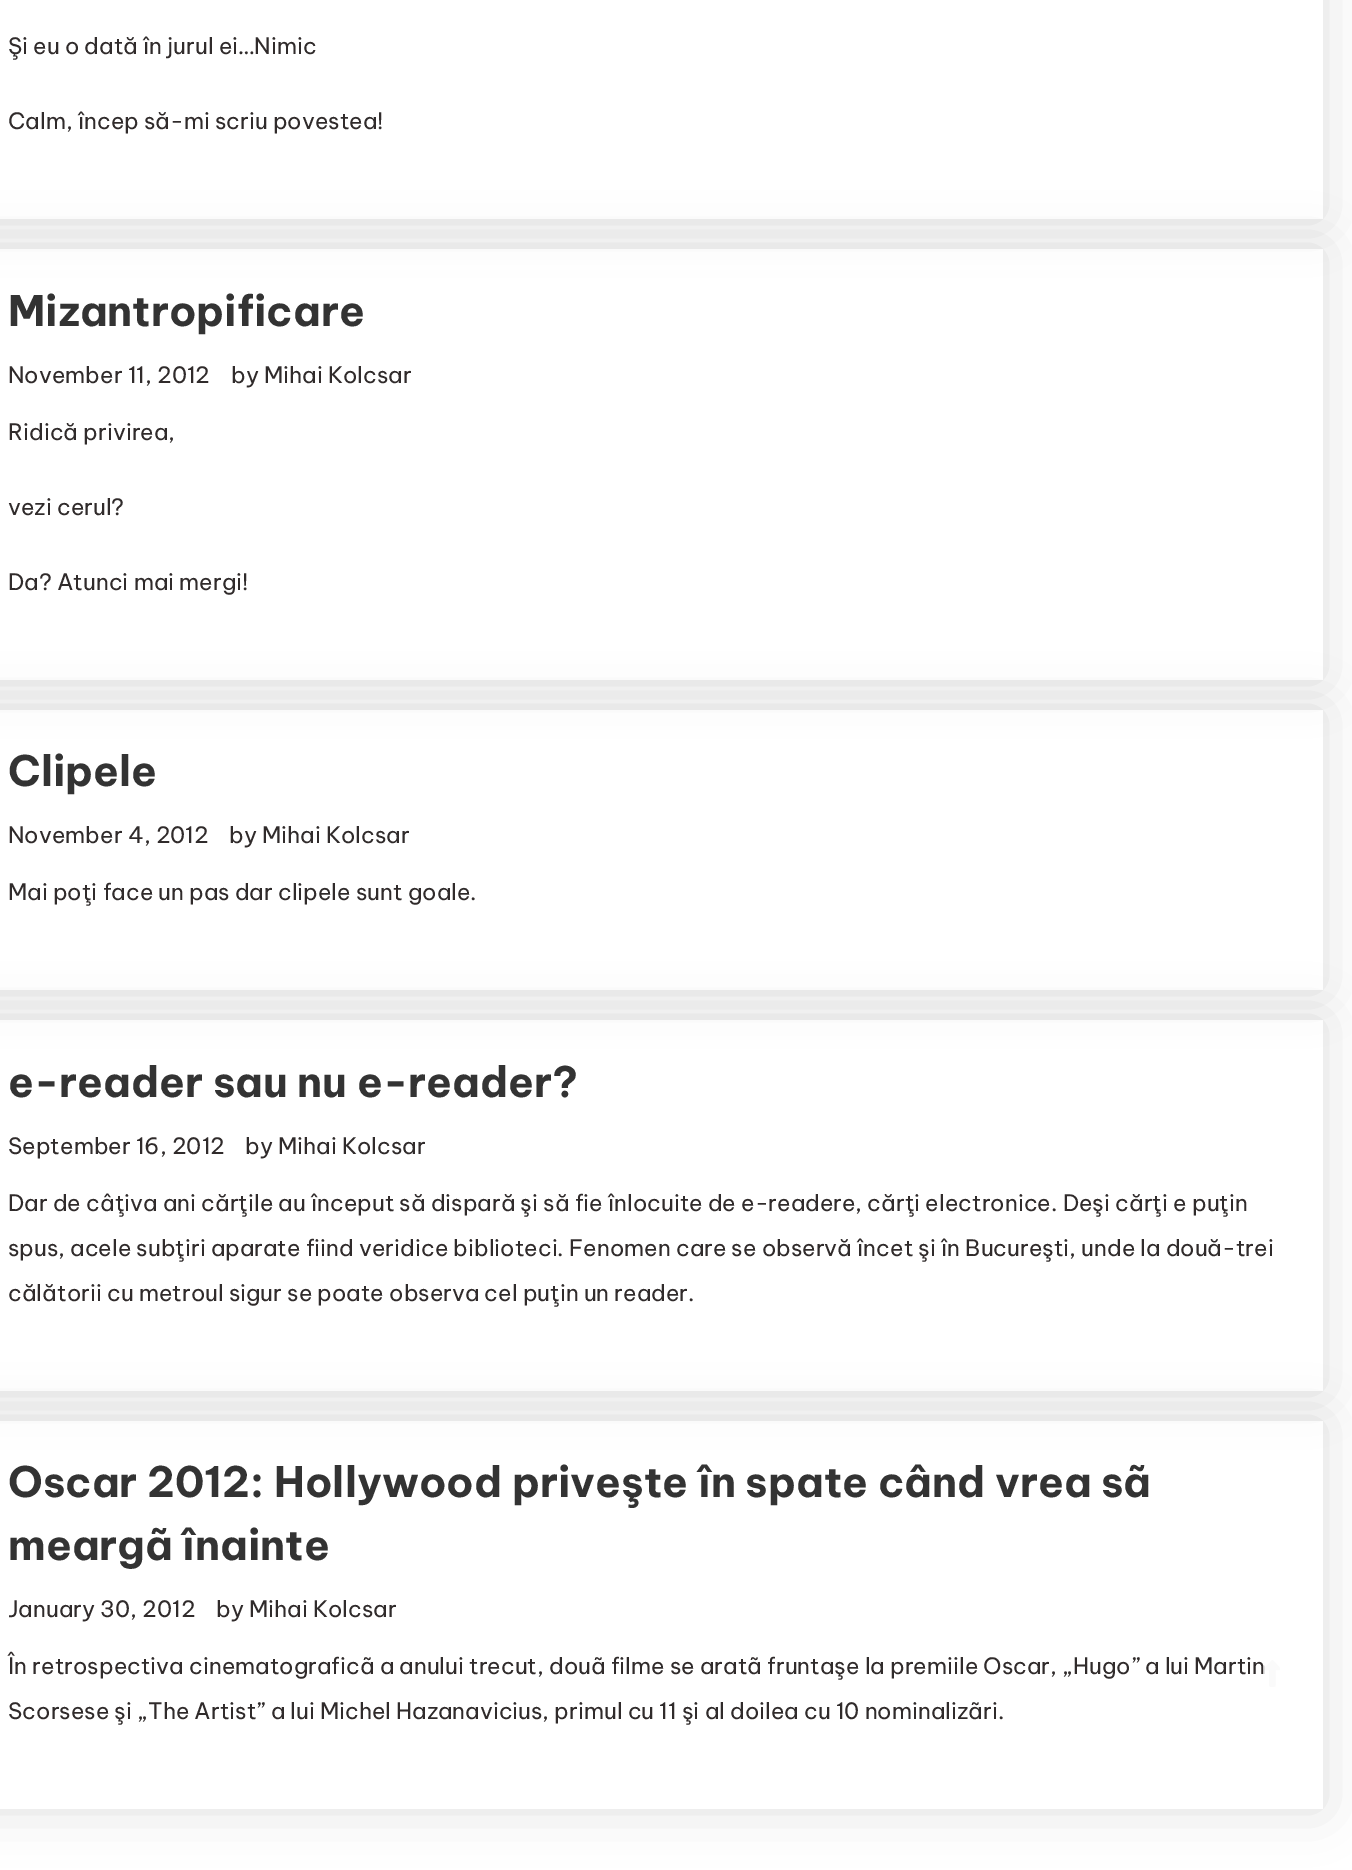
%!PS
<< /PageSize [1352 1870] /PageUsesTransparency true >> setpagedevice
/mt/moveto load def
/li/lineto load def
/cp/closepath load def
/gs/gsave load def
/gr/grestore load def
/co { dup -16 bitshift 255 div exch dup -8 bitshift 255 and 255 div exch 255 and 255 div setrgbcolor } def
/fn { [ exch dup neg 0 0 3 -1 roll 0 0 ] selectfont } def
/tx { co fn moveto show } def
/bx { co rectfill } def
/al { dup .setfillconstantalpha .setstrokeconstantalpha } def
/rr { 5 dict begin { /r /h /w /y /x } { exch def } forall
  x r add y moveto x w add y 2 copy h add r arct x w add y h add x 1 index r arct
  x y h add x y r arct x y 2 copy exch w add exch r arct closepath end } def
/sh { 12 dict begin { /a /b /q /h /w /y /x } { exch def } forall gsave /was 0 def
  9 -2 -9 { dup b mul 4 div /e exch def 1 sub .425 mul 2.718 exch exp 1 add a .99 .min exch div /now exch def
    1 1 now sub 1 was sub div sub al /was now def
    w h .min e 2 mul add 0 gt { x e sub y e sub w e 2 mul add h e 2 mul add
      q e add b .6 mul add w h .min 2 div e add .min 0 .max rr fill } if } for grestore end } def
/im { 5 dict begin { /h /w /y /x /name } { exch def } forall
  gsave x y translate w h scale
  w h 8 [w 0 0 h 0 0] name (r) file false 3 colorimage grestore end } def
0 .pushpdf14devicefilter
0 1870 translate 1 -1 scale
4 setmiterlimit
0 0 1352 1870 16#FFFFFF bx
gs
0 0 mt 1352 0 li 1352 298 li 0 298 li cp -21 -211 mt 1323 -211 li 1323 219 li -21 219 li cp eoclip newpath
16#000000 co
-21 -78 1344 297 0 26 .13 sh
gr
gs
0 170 mt 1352 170 li 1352 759 li 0 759 li cp -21 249 mt 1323 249 li 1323 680 li -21 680 li cp eoclip newpath
16#000000 co
-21 249 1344 431 0 26 .13 sh
gr
gs
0 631 mt 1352 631 li 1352 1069 li 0 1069 li cp -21 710 mt 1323 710 li 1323 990 li -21 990 li cp eoclip newpath
16#000000 co
-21 710 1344 280 0 26 .13 sh
gr
gs
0 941 mt 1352 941 li 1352 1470 li 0 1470 li cp -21 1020 mt 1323 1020 li 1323 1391 li -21 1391 li cp eoclip newpath
16#000000 co
-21 1020 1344 371 0 26 .13 sh
gr
gs
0 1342 mt 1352 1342 li 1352 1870 li 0 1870 li cp -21 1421 mt 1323 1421 li 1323 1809 li -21 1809 li cp eoclip newpath
16#000000 co
-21 1421 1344 388 0 26 .13 sh
gr
(Şi eu o dată în jurul ei…Nimic) 8 54 /BeVietnamPro-Regular 22.5 16#302B2B tx
(Calm, încep să-mi scriu povestea!) 8 129 /BeVietnamPro-Regular 22.5 16#302B2B tx
(Mizantropificare) 8 326 /BeVietnamPro-Bold 42 16#333333 tx
(November 11, 2012) 8 383 /BeVietnamPro-Regular 22.5 16#302B2B tx
(by Mihai Kolcsar) 231 383 /BeVietnamPro-Regular 22.5 16#302B2B tx
(Ridică privirea,) 8 440 /BeVietnamPro-Regular 22.5 16#302B2B tx
(vezi cerul?) 8 515 /BeVietnamPro-Regular 22.5 16#302B2B tx
(Da? Atunci mai mergi!) 8 590 /BeVietnamPro-Regular 22.5 16#302B2B tx
(Clipele) 8 786 /BeVietnamPro-Bold 42 16#333333 tx
(November 4, 2012) 8 843 /BeVietnamPro-Regular 22.5 16#302B2B tx
(by Mihai Kolcsar) 229 843 /BeVietnamPro-Regular 22.5 16#302B2B tx
(Mai poţi face un pas dar clipele sunt goale.) 8 900 /BeVietnamPro-Regular 22.5 16#302B2B tx
(e-reader sau nu e-reader?) 8 1097 /BeVietnamPro-Bold 42 16#333333 tx
(September 16, 2012) 8 1154 /BeVietnamPro-Regular 22.5 16#302B2B tx
(by Mihai Kolcsar) 245 1154 /BeVietnamPro-Regular 22.5 16#302B2B tx
(Dar de câţiva ani cărţile au început să dispară şi să fie înlocuite de e-readere, cărţi electronice. Deşi cărţi e puţin) 8 1211 /BeVietnamPro-Regular 22.5 16#302B2B tx
(spus, acele subţiri aparate fiind veridice biblioteci. Fenomen care se observă încet şi în Bucureşti, unde la două-trei) 8 1256 /BeVietnamPro-Regular 22.5 16#302B2B tx
(călătorii cu metroul sigur se poate observa cel puţin un reader.) 8 1301 /BeVietnamPro-Regular 22.5 16#302B2B tx
(Oscar 2012: Hollywood priveşte în spate când vrea sã) 8 1497 /BeVietnamPro-Bold 42 16#333333 tx
(meargã înainte) 8 1560 /BeVietnamPro-Bold 42 16#333333 tx
(January 30, 2012) 8 1617 /BeVietnamPro-Regular 22.5 16#302B2B tx
(by Mihai Kolcsar) 216 1617 /BeVietnamPro-Regular 22.5 16#302B2B tx
(În retrospectiva cinematograficã a anului trecut, douã filme se aratã fruntaşe la premiile Oscar, „Hugo” a lui Martin) 8 1674 /BeVietnamPro-Regular 22.5 16#302B2B tx
(Scorsese şi „The Artist” a lui Michel Hazanavicius, primul cu 11 şi al doilea cu 10 nominalizãri.) 8 1719 /BeVietnamPro-Regular 22.5 16#302B2B tx
(media/1.raw) 1264 1660 16 27 im
.poppdf14devicefilter showpage
